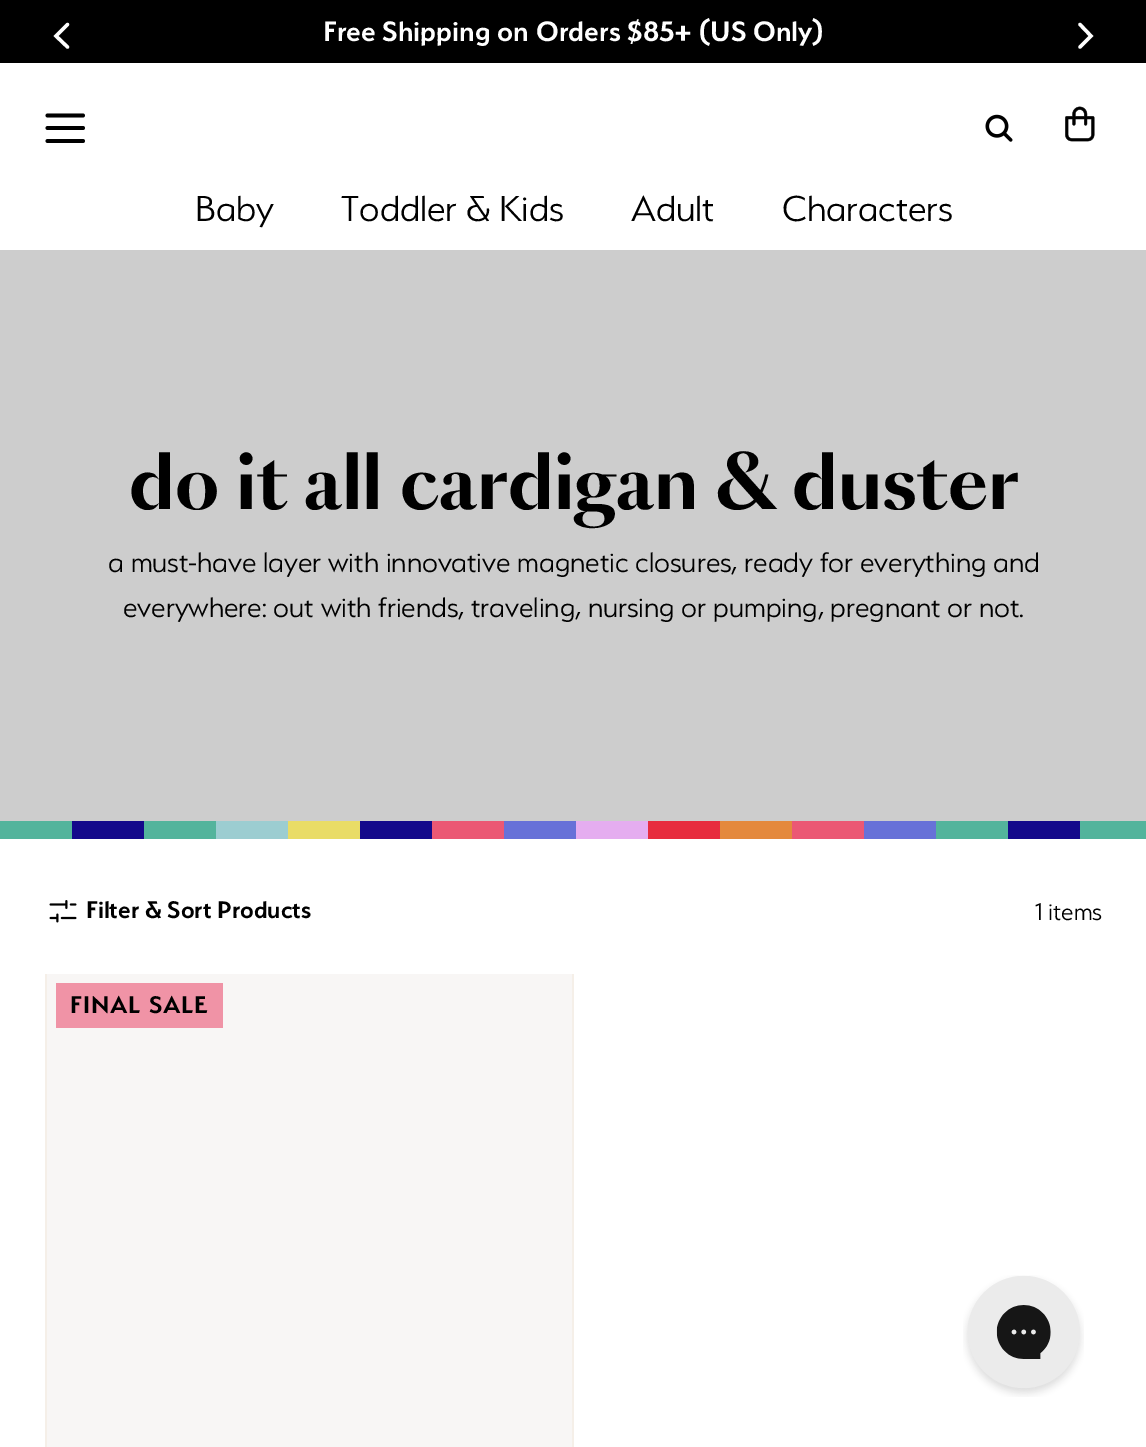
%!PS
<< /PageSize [1146 1447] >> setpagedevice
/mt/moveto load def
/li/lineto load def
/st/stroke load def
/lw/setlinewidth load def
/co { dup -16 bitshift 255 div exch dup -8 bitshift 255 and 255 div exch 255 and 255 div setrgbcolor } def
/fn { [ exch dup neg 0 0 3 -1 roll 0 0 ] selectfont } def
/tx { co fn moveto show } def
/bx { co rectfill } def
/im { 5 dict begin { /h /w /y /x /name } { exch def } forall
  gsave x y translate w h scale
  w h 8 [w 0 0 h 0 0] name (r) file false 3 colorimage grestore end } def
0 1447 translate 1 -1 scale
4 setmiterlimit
0 0 1146 1447 16#FFFFFF bx
0 0 1146 63 16#000000 bx
16#FFFFFF co
3.4 lw
1 setlinecap
67.5 24.5 mt 56 36 li 67.5 47 li st
1080 24.5 mt 1091 36 li 1080 47 li st
16#000000 co
3.8 lw
47.5 115.5 mt 83 115.5 li 47.5 128 mt 83 128 li 47.5 141 mt 83 141 li st
(media/1.raw) 985 114 28 28 im
(media/2.raw) 1065 106 30 36 im
0 250 1146 571 16#CDCDCD bx
0 821 72 18 16#53B49C bx
72 821 72 18 16#14098B bx
144 821 72 18 16#53B49C bx
216 821 72 18 16#9CCDD1 bx
288 821 72 18 16#E9DC66 bx
360 821 72 18 16#14098B bx
432 821 72 18 16#EB5874 bx
504 821 72 18 16#6771D8 bx
576 821 72 18 16#E5ADF0 bx
648 821 72 18 16#E72C3E bx
720 821 72 18 16#E4893D bx
792 821 72 18 16#EB5874 bx
864 821 72 18 16#6771D8 bx
936 821 72 18 16#53B49C bx
1008 821 72 18 16#14098B bx
1080 821 66 18 16#53B49C bx
(media/3.raw) 49 900 28 23 im
47 974 525 473 16#F8F6F5 bx
572 974 2 473 16#F5EFE8 bx
45 974 2 473 16#F5EFE8 bx
56 983 167 45 16#F093A6 bx
(media/4.raw) 963 1275 121 122 im
(Free Shipping on Orders $85+ \(US Only\)) 323 41 /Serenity-SemiBold 31.5 16#FFFFFF tx
(Baby) 195 221 /Serenity-Light 40.5 16#000000 tx
(Toddler & Kids) 341 221 /Serenity-Light 40.5 16#000000 tx
(Adult) 631 221 /Serenity-Light 40.5 16#000000 tx
(Characters) 782 221 /Serenity-Light 40.5 16#000000 tx
(do it all cardigan & duster) 129 509 /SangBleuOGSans-Bold 72 16#000000 tx
(a must-have layer with innovative magnetic closures, ready for everything and) 108 572 /Serenity-Light 31.5 16#000000 tx
(everywhere: out with friends, traveling, nursing or pumping, pregnant or not.) 123 617 /Serenity-Light 31.5 16#000000 tx
(Filter & Sort Products) 86 918 /Serenity-SemiBold 27 16#000000 tx
(1 items) 1035 920 /Serenity-Light 27 16#000000 tx
/Serenity-SemiBold 27 fn
70 1013 mt 1 0 (FINAL SALE) ashow
showpage
